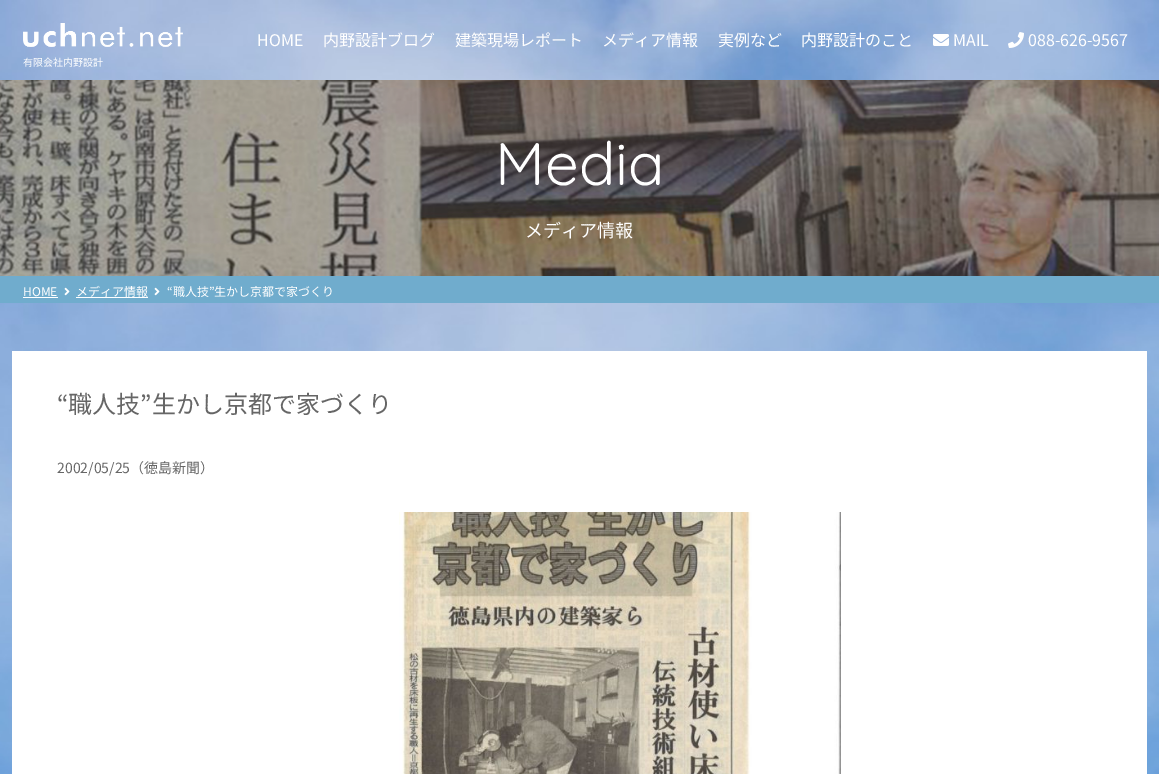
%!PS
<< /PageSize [1159 774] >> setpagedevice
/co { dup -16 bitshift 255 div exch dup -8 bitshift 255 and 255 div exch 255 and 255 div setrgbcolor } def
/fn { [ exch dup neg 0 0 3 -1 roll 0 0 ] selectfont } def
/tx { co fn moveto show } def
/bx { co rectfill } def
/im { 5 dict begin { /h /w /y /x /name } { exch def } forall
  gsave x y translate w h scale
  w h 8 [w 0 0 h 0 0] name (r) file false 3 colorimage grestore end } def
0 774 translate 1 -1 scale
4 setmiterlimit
0 0 1159 774 16#FFFFFF bx
(media/1.raw) 0 0 1159 774 im
(media/2.raw) 933 34 16 12 im
(media/3.raw) 1008 32 16 16 im
(media/4.raw) 23 23 160 24 im
(media/5.raw) 0 80 1159 196 im
0 276 1159 27 16#70ACCD bx
23 297 35 1 16#FFFFFF bx
(media/6.raw) 64 287 6 9 im
76 297 72 1 16#FFFFFF bx
(media/6.raw) 154 287 6 9 im
12 351 1135 423 16#FFFFFF bx
(media/7.raw) 399 512 442 262 im
(HOME) 257 46 /NotoSansJP-Thin 16 16#FFFFFF tx
(内野設計ブログ) 323 46 /NotoSansJP-Thin 16 16#FFFFFF tx
(建築現場レポート) 455 46 /NotoSansJP-Thin 16 16#FFFFFF tx
(メディア情報) 602 46 /NotoSansJP-Thin 16 16#FFFFFF tx
(実例など) 718 46 /NotoSansJP-Thin 16 16#FFFFFF tx
(内野設計のこと) 801 46 /NotoSansJP-Thin 16 16#FFFFFF tx
(MAIL) 953 46 /NotoSansJP-Thin 16 16#FFFFFF tx
(088-626-9567) 1028 46 /NotoSansJP-Thin 16 16#FFFFFF tx
(有限会社内野設計) 23 66 /NotoSansJP-Thin 10 16#FFFFFF tx
(Media) 495 185 /Quicksand-Light 60 16#FFFFFF tx
(メディア情報) 525 237 /NotoSansJP-Thin 18 16#FFFFFF tx
(HOME) 23 296 /NotoSansJP-Thin 12 16#FFFFFF tx
(メディア情報) 76 296 /NotoSansJP-Thin 12 16#FFFFFF tx
(“職人技”生かし京都で家づくり) 167 296 /NotoSansJP-Thin 12 16#FFFFFF tx
(“職人技”生かし京都で家づくり) 57 413 /NotoSansJP-Thin 24 16#666666 tx
(2002/05/25（徳島新聞）) 57 473 /NotoSansJP-Thin 14 16#666666 tx
showpage
